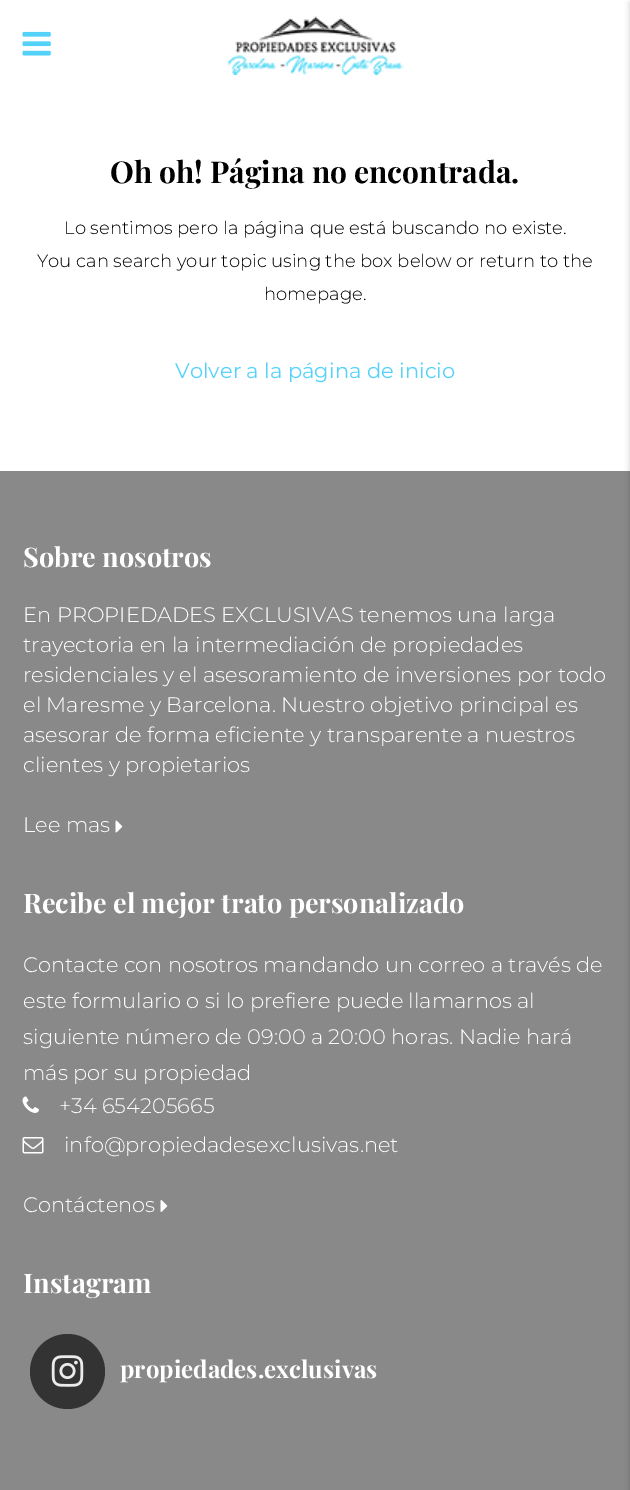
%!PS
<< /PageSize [630 1490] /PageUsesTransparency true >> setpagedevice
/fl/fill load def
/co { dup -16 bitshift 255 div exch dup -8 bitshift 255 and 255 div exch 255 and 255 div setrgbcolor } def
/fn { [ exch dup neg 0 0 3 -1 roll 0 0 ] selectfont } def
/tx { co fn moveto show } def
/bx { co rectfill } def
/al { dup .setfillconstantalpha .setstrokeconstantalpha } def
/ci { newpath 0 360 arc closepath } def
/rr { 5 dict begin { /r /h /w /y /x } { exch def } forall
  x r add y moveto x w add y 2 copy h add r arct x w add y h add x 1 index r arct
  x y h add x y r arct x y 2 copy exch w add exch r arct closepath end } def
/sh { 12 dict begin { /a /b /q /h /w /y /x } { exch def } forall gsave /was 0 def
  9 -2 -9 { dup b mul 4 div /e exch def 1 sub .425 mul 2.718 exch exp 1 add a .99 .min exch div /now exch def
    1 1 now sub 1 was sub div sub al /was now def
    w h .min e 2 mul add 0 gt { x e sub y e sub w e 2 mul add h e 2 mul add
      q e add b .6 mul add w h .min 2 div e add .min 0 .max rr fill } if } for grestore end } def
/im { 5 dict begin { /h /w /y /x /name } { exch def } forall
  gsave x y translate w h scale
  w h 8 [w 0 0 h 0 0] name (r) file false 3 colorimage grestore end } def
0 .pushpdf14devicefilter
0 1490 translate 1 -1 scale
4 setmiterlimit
0 0 630 1490 16#FFFFFF bx
(media/1.raw) 22 31 29 25 im
(media/2.raw) 227 16 177 59 im
0 471 630 1019 16#898989 bx
16#000000 co
630 3 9 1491 0 3 .2 sh
(media/3.raw) 115 820 8 13 im
(media/4.raw) 22 1096 17 17 im
(media/5.raw) 22 1137 22 17 im
(media/6.raw) 160 1200 8 12 im
16#333333 co
67.5 1371.5 37.5 ci fl
(media/7.raw) 51 1355 33 32 im
(Oh oh! Página no encontrada.) 110 183 /PlayfairDisplay-Bold 30 16#000000 tx
(Lo sentimos pero la página que está buscando no existe.) 64 234 /Montserrat-Light 18 16#000000 tx
(You can search your topic using the box below or return to the) 37 267 /Montserrat-Light 18 16#000000 tx
(homepage.) 264 300 /Montserrat-Light 18 16#000000 tx
(Volver a la página de inicio) 175 378 /Montserrat-Regular 21 16#55D2FA tx
(Sobre nosotros) 23 567 /PlayfairDisplay-Bold 27 16#FFFFFF tx
(En PROPIEDADES EXCLUSIVAS tenemos una larga) 23 622 /Montserrat-Light 21 16#FFFFFF tx
(trayectoria en la intermediación de propiedades) 23 652 /Montserrat-Light 21 16#FFFFFF tx
(residenciales y el asesoramiento de inversiones por todo) 23 682 /Montserrat-Light 21 16#FFFFFF tx
(el Maresme y Barcelona. Nuestro objetivo principal es) 23 712 /Montserrat-Light 21 16#FFFFFF tx
(asesorar de forma eficiente y transparente a nuestros) 23 742 /Montserrat-Light 21 16#FFFFFF tx
(clientes y propietarios) 23 772 /Montserrat-Light 21 16#FFFFFF tx
(Lee mas) 23 832 /Montserrat-Light 21 16#FFFFFF tx
(Recibe el mejor trato personalizado) 23 913 /PlayfairDisplay-Bold 27 16#FFFFFF tx
(Contacte con nosotros mandando un correo a través de) 23 972 /Montserrat-Light 21 16#FFFFFF tx
(este formulario o si lo prefiere puede llamarnos al) 23 1008 /Montserrat-Light 21 16#FFFFFF tx
(siguiente número de 09:00 a 20:00 horas. Nadie hará) 23 1044 /Montserrat-Light 21 16#FFFFFF tx
(más por su propiedad) 23 1080 /Montserrat-Light 21 16#FFFFFF tx
(+34 654205665) 59 1113 /Montserrat-Light 21 16#FFFFFF tx
(info@propiedadesexclusivas.net) 64 1152 /Montserrat-Light 21 16#FFFFFF tx
(Contáctenos) 23 1212 /Montserrat-Light 21 16#FFFFFF tx
(Instagram) 23 1293 /PlayfairDisplay-Bold 27 16#FFFFFF tx
(propiedades.exclusivas) 120 1378 /PlayfairDisplay-Bold 24 16#FFFFFF tx
.poppdf14devicefilter showpage
